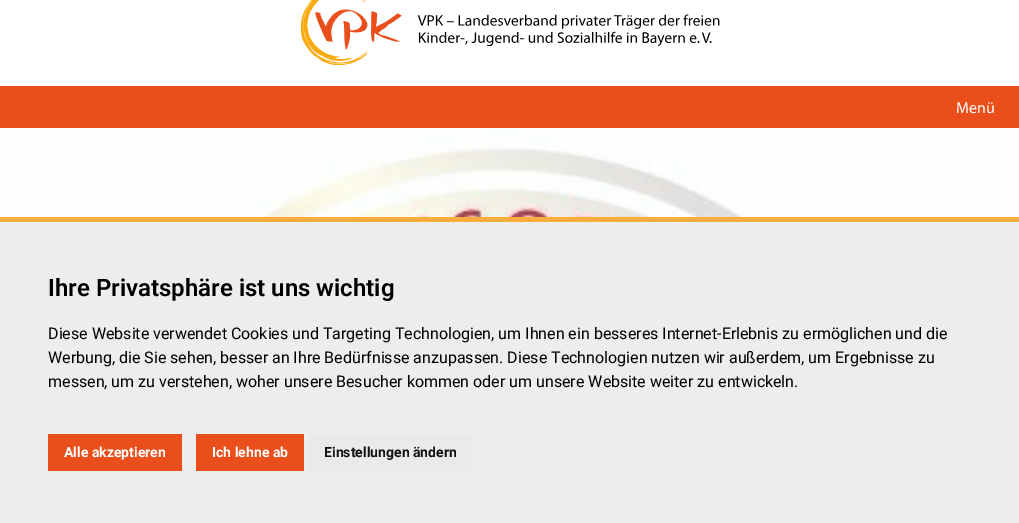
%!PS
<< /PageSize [1019 523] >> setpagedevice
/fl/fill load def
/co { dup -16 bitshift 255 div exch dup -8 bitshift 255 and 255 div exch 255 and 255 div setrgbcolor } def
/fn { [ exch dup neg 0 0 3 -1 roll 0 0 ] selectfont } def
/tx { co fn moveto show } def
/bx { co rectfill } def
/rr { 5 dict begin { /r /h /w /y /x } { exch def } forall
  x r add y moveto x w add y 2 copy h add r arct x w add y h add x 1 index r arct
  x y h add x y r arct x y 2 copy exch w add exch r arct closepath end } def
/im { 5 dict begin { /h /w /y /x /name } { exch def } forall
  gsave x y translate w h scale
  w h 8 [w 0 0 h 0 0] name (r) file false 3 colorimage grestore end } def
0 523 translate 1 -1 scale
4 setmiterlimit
0 0 1019 523 16#FFFFFF bx
0 86 1019 42 16#E94E1B bx
(media/1.raw) 300 0 420 65 im
(media/2.raw) 0 128 1019 89 im
0 222 1019 301 16#EDEDED bx
0 217 1019 5 16#FAAC3D bx
48 434 134 37 16#E94E1B bx
196 434 108 37 16#E94E1B bx
16#EAEAEA co
308 434 165 37 2 rr fl
(Menü) 956 113 /Myriad-Regular 16 16#FFFFFF tx
(Ihre Privatsphäre ist uns wichtig) 48 296 /Roboto-SemiBold 24 16#000000 tx
(Diese Website verwendet Cookies und Targeting Technologien, um Ihnen ein besseres Internet-Erlebnis zu ermöglichen und die) 48 339 /Roboto-Regular 16 16#000000 tx
(Werbung, die Sie sehen, besser an Ihre Bedürfnisse anzupassen. Diese Technologien nutzen wir außerdem, um Ergebnisse zu) 48 363 /Roboto-Regular 16 16#000000 tx
(messen, um zu verstehen, woher unsere Besucher kommen oder um unsere Website weiter zu entwickeln.) 48 387 /Roboto-Regular 16 16#000000 tx
(Alle akzeptieren) 64 457 /Roboto-Bold 14 16#FFFFFF tx
(Ich lehne ab) 212 457 /Roboto-Bold 14 16#FFFFFF tx
(Einstellungen ändern) 324 457 /Roboto-Bold 14 16#111111 tx
showpage
